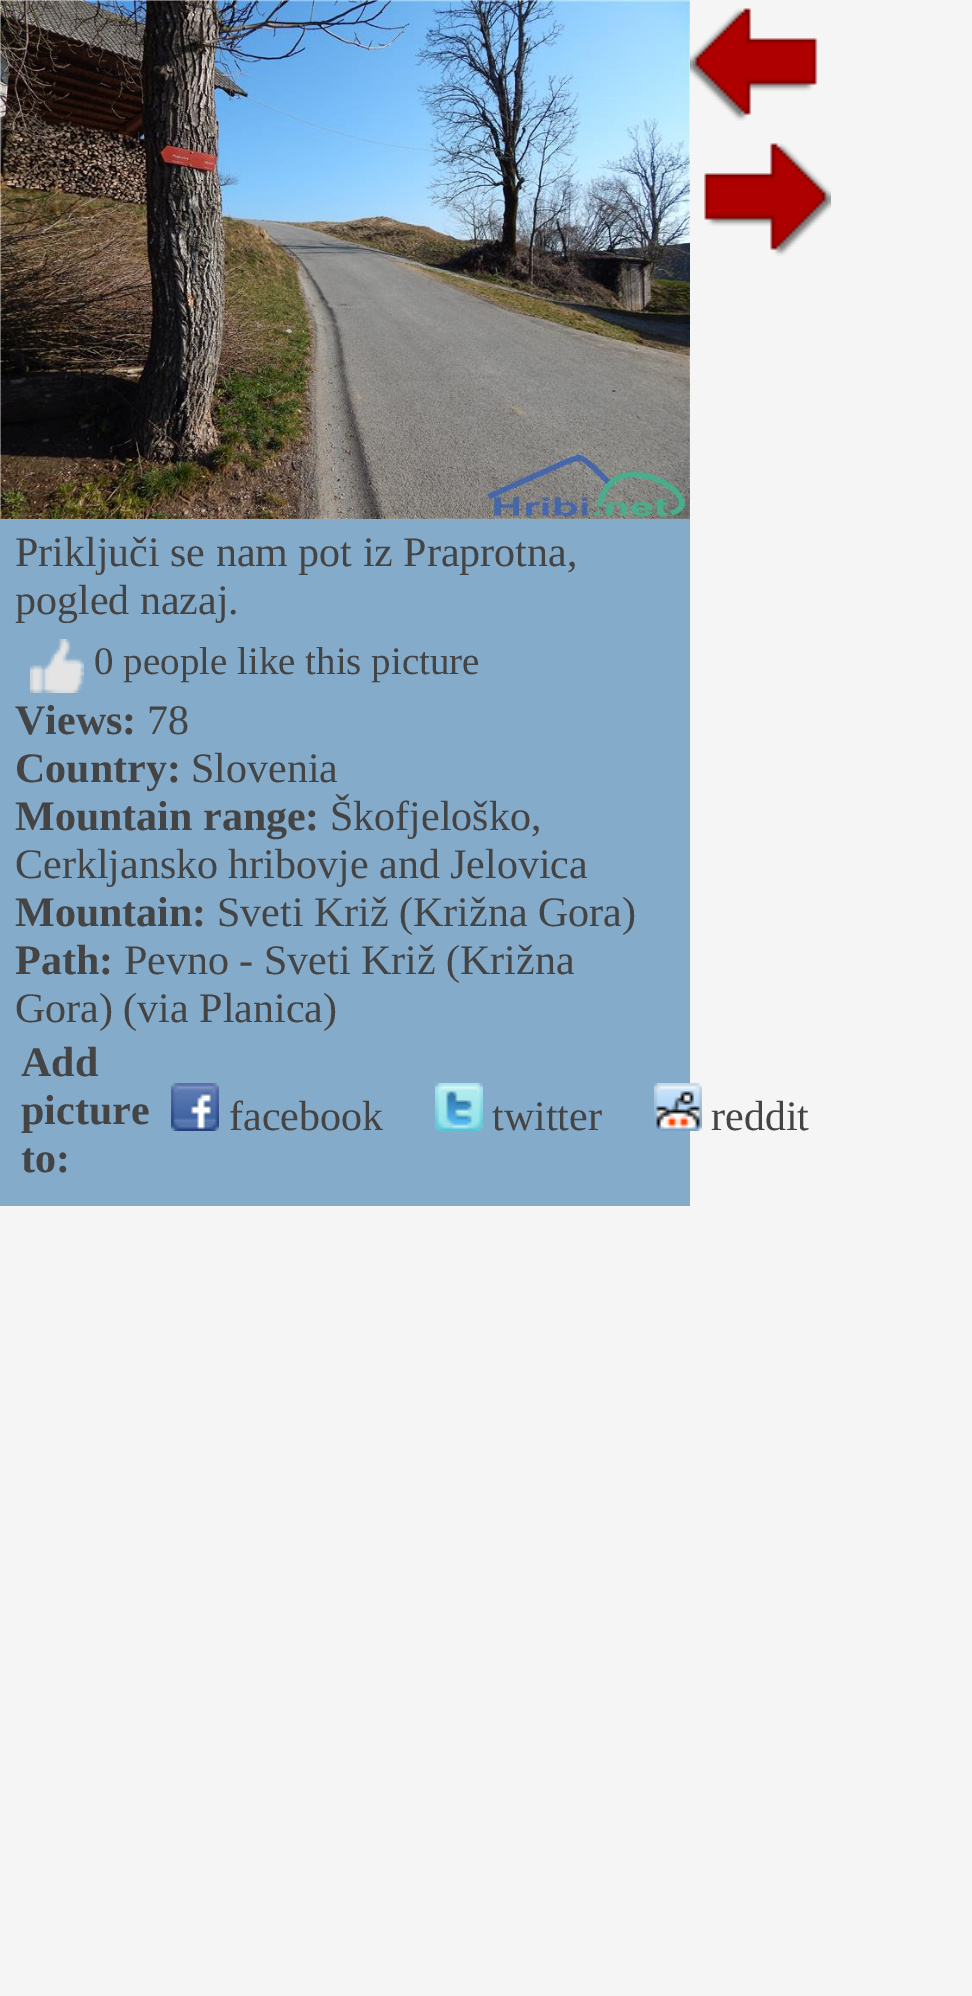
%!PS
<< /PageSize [972 1996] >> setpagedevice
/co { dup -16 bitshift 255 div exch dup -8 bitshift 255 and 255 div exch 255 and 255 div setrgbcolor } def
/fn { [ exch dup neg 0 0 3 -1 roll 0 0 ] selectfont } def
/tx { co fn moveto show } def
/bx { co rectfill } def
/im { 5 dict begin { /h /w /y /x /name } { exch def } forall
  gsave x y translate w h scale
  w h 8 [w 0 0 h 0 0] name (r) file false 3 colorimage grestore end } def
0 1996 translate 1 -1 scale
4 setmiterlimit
0 0 972 1996 16#F5F5F5 bx
(media/1.raw) 690 8 128 113 im
(media/2.raw) 704 143 127 113 im
0 519 690 687 16#85ABCA bx
(media/3.raw) 0 0 690 519 im
(media/4.raw) 30 639 54 54 im
(media/5.raw) 171 1083 48 48 im
(media/6.raw) 435 1083 48 48 im
(media/7.raw) 654 1083 48 48 im
(Priključi se nam pot iz Praprotna,) 15 566 /LiberationSerif-Regular 42 16#444444 tx
(pogled nazaj.) 15 614 /LiberationSerif-Regular 42 16#444444 tx
(0 people like this picture) 94 674 /LiberationSerif-Regular 39 16#444444 tx
(Views:) 15 734 /LiberationSerif-Bold 42 16#444444 tx
(78) 147 734 /LiberationSerif-Regular 42 16#444444 tx
(Country:) 15 782 /LiberationSerif-Bold 42 16#444444 tx
(Slovenia) 191 782 /LiberationSerif-Regular 42 16#444444 tx
(Mountain range:) 15 830 /LiberationSerif-Bold 42 16#444444 tx
(Škofjeloško,) 330 830 /LiberationSerif-Regular 42 16#444444 tx
(Cerkljansko hribovje and Jelovica) 15 878 /LiberationSerif-Regular 42 16#444444 tx
(Mountain:) 15 926 /LiberationSerif-Bold 42 16#444444 tx
(Sveti Križ \(Križna Gora\)) 217 926 /LiberationSerif-Regular 42 16#444444 tx
(Path:) 15 974 /LiberationSerif-Bold 42 16#444444 tx
(Pevno - Sveti Križ \(Križna) 124 974 /LiberationSerif-Regular 42 16#444444 tx
(Gora\) \(via Planica\)) 15 1022 /LiberationSerif-Regular 42 16#444444 tx
(Add) 21 1076 /LiberationSerif-Bold 42 16#444444 tx
(picture) 21 1124 /LiberationSerif-Bold 42 16#444444 tx
(to:) 21 1172 /LiberationSerif-Bold 42 16#444444 tx
(facebook) 229 1130 /LiberationSerif-Regular 42 16#444444 tx
(twitter) 492 1130 /LiberationSerif-Regular 42 16#444444 tx
(reddit) 711 1130 /LiberationSerif-Regular 42 16#444444 tx
showpage
